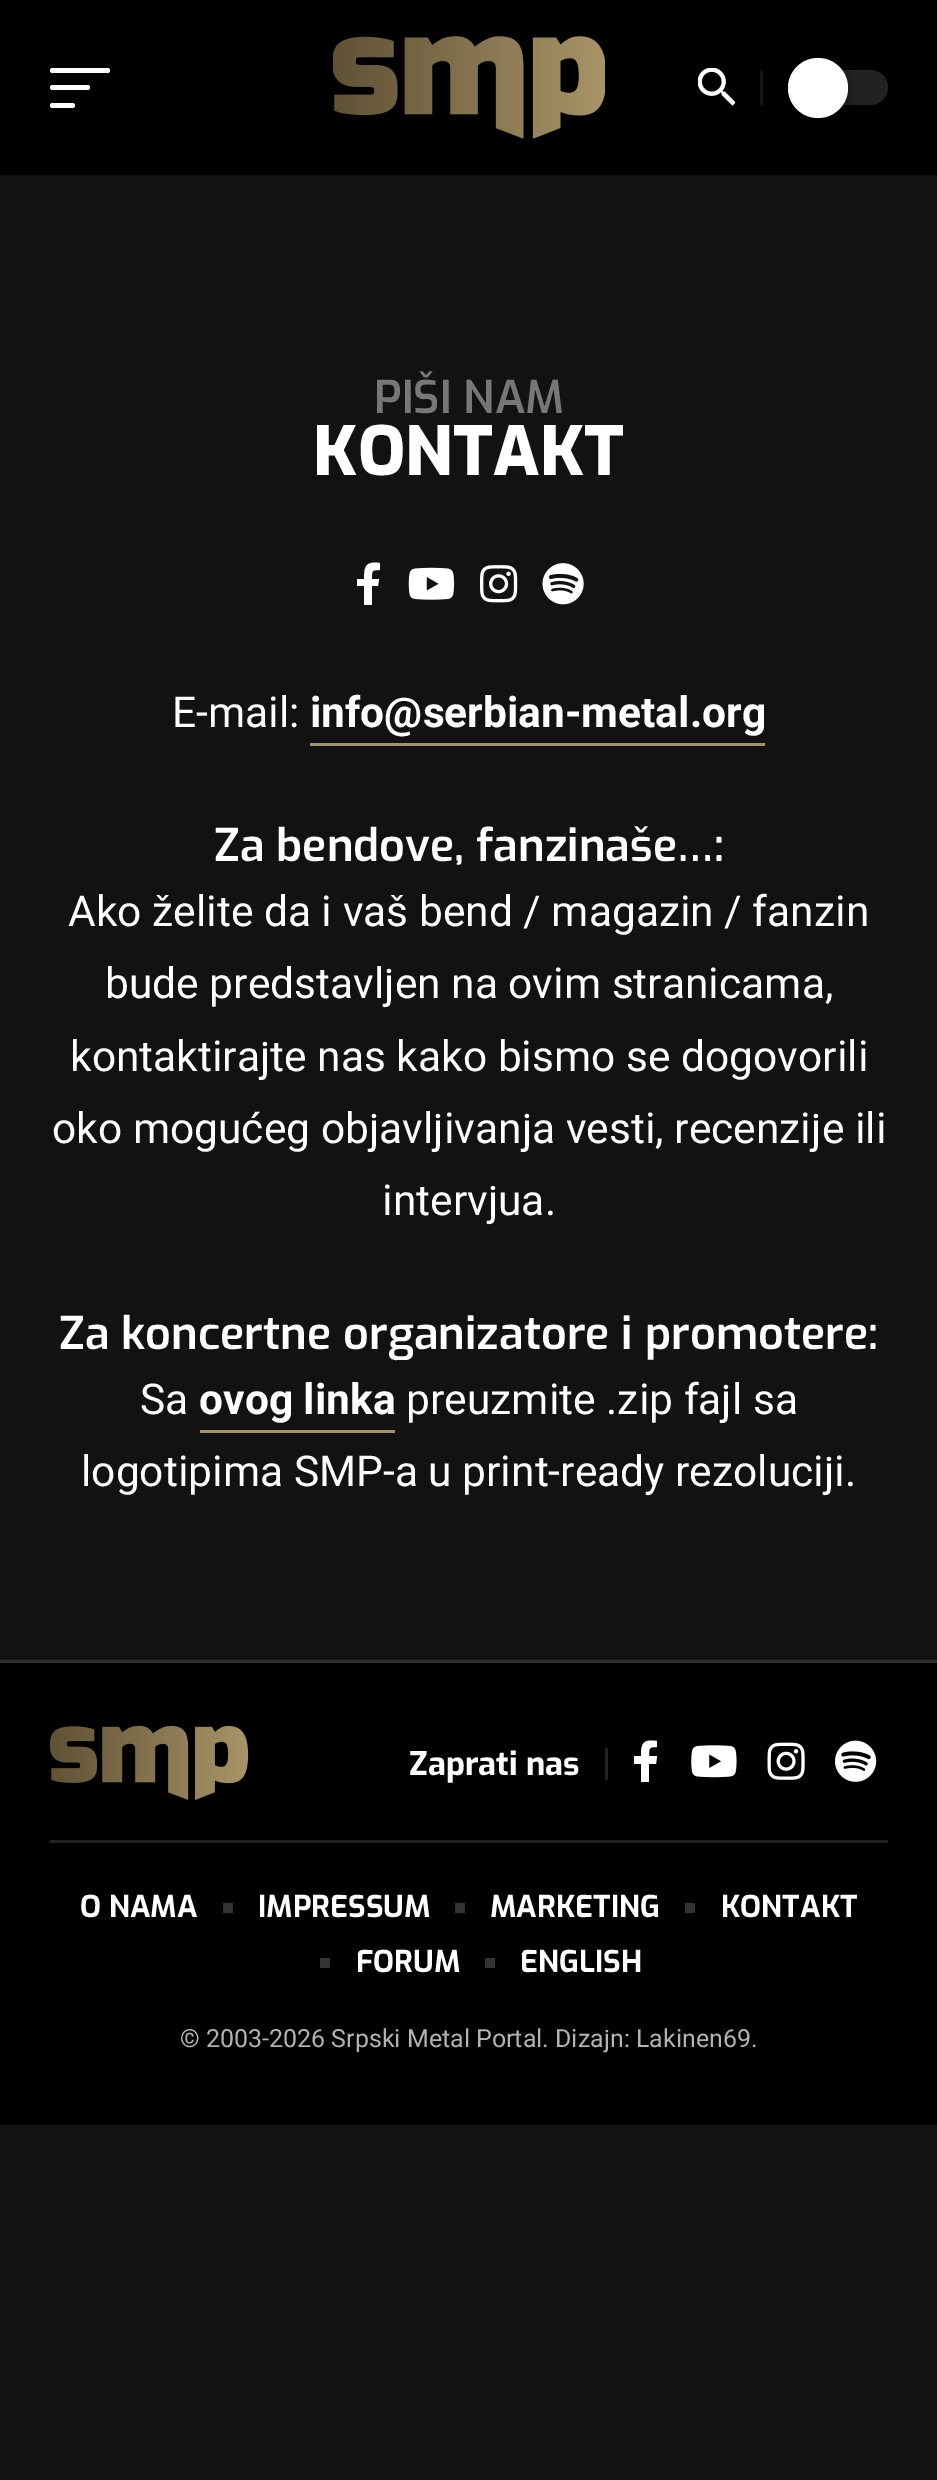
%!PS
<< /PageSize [937 2480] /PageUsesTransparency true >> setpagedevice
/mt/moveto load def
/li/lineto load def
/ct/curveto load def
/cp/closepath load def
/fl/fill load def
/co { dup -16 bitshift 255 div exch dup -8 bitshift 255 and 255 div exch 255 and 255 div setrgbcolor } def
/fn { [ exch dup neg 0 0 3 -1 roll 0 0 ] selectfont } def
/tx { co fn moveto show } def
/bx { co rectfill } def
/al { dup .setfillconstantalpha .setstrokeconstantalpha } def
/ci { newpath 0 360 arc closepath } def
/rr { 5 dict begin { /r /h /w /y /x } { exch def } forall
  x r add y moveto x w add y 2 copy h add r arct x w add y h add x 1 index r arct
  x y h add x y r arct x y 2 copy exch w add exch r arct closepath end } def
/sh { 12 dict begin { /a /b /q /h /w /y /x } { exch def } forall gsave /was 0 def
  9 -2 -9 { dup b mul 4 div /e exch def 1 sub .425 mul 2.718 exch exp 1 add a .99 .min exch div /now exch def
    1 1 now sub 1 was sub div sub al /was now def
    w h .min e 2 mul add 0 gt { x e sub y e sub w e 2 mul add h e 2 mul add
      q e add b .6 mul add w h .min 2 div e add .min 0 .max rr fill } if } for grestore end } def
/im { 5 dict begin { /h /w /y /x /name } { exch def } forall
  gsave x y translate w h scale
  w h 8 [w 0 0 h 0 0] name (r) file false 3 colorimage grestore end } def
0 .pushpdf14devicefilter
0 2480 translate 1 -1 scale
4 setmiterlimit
0 0 937 2480 16#121212 bx
0 0 937 175 16#000000 bx
16#FFFFFF co
50 68 60 5 2.5 rr fl
50 85 40 5 2.5 rr fl
50 103 25 5 2.5 rr fl
(media/1.raw) 333 36 272 103 im
(media/2.raw) 698 68 37 38 im
760 70 3 35 16#151515 bx
16#222222 co
788 70 100 35 17.5 rr fl
16#000000 co
788 60 60 60 30 5 .4 sh
16#FFFFFF co
818 88 30 ci fl
378 586 mt 379 579 li 372 579 li 372 571 371 570 380 570 ct 380 563 li 366 561 364 566 364 579 ct 357 579 li 357 586 li 364 586 li 364 605 li 372 605 li 372 586 li cp fl
(media/3.raw) 408 567 47 33 im
(media/4.raw) 480 565 38 38 im
(media/5.raw) 542 563 42 42 im
310 743 455 3 16#A99467 bx
200 1430 195 3 16#A99467 bx
0 1660 937 3 16#303030 bx
0 1663 937 462 16#000000 bx
(media/6.raw) 50 1725 199 75 im
605 1748 3 32 16#222222 bx
16#FFFFFF co
656 1764 mt 657 1756 li 649 1756 li 649 1748 649 1747 657 1747 ct 657 1741 li 643 1739 641 1743 641 1756 ct 634 1756 li 634 1764 li 641 1764 li 641 1782 li 649 1782 li 649 1764 li cp fl
(media/7.raw) 691 1745 46 33 im
(media/8.raw) 767 1742 38 38 im
(media/9.raw) 835 1740 42 42 im
50 1840 838 3 16#222222 bx
223 1903 10 10 16#333333 bx
455 1903 10 10 16#333333 bx
685 1903 10 10 16#333333 bx
320 1958 10 10 16#333333 bx
485 1958 10 10 16#333333 bx
(PIŠI NAM) 374 413 /Exo-SemiBold 45 16#777777 tx
(KONTAKT) 313 475 /Exo-ExtraBold 67.5 16#FFFFFF tx
(E-mail:) 172 727 /Heebo-Regular 42.5 16#FFFFFF tx
(info@serbian-metal.org) 310 727 /Heebo-Bold 42.5 16#FFFFFF tx
(Za bendove, fanzinaše…:) 214 861 /Exo-SemiBold 45 16#FFFFFF tx
(Ako želite da i vaš bend / magazin / fanzin) 68 926 /Heebo-Regular 42.5 16#FFFFFF tx
(bude predstavljen na ovim stranicama,) 105 998 /Heebo-Regular 42.5 16#FFFFFF tx
(kontaktirajte nas kako bismo se dogovorili) 70 1071 /Heebo-Regular 42.5 16#FFFFFF tx
(oko mogućeg objavljivanja vesti, recenzije ili) 52 1143 /Heebo-Regular 42.5 16#FFFFFF tx
(intervjua.) 382 1215 /Heebo-Regular 42.5 16#FFFFFF tx
(Za koncertne organizatore i promotere:) 59 1349 /Exo-SemiBold 45 16#FFFFFF tx
(Sa) 140 1414 /Heebo-Regular 42.5 16#FFFFFF tx
(ovog linka) 199 1414 /Heebo-Bold 42.5 16#FFFFFF tx
(preuzmite .zip fajl sa) 406 1414 /Heebo-Regular 42.5 16#FFFFFF tx
(logotipima SMP-a u print-ready rezoluciji.) 81 1486 /Heebo-Regular 42.5 16#FFFFFF tx
(Zaprati nas) 409 1775 /Exo-Bold 32.5 16#FFFFFF tx
(O NAMA) 80 1917 /Exo-Bold 30 16#FFFFFF tx
(IMPRESSUM) 258 1917 /Exo-Bold 30 16#FFFFFF tx
(MARKETING) 490 1917 /Exo-Bold 30 16#FFFFFF tx
(KONTAKT) 721 1917 /Exo-Bold 30 16#FFFFFF tx
(FORUM) 356 1972 /Exo-Bold 30 16#FFFFFF tx
(ENGLISH) 520 1972 /Exo-Bold 30 16#FFFFFF tx
(© 2003-2026 Srpski Metal Portal. Dizajn: Lakinen69.) 180 2047 /Heebo-Regular 25 16#B3B3B3 tx
.poppdf14devicefilter showpage
